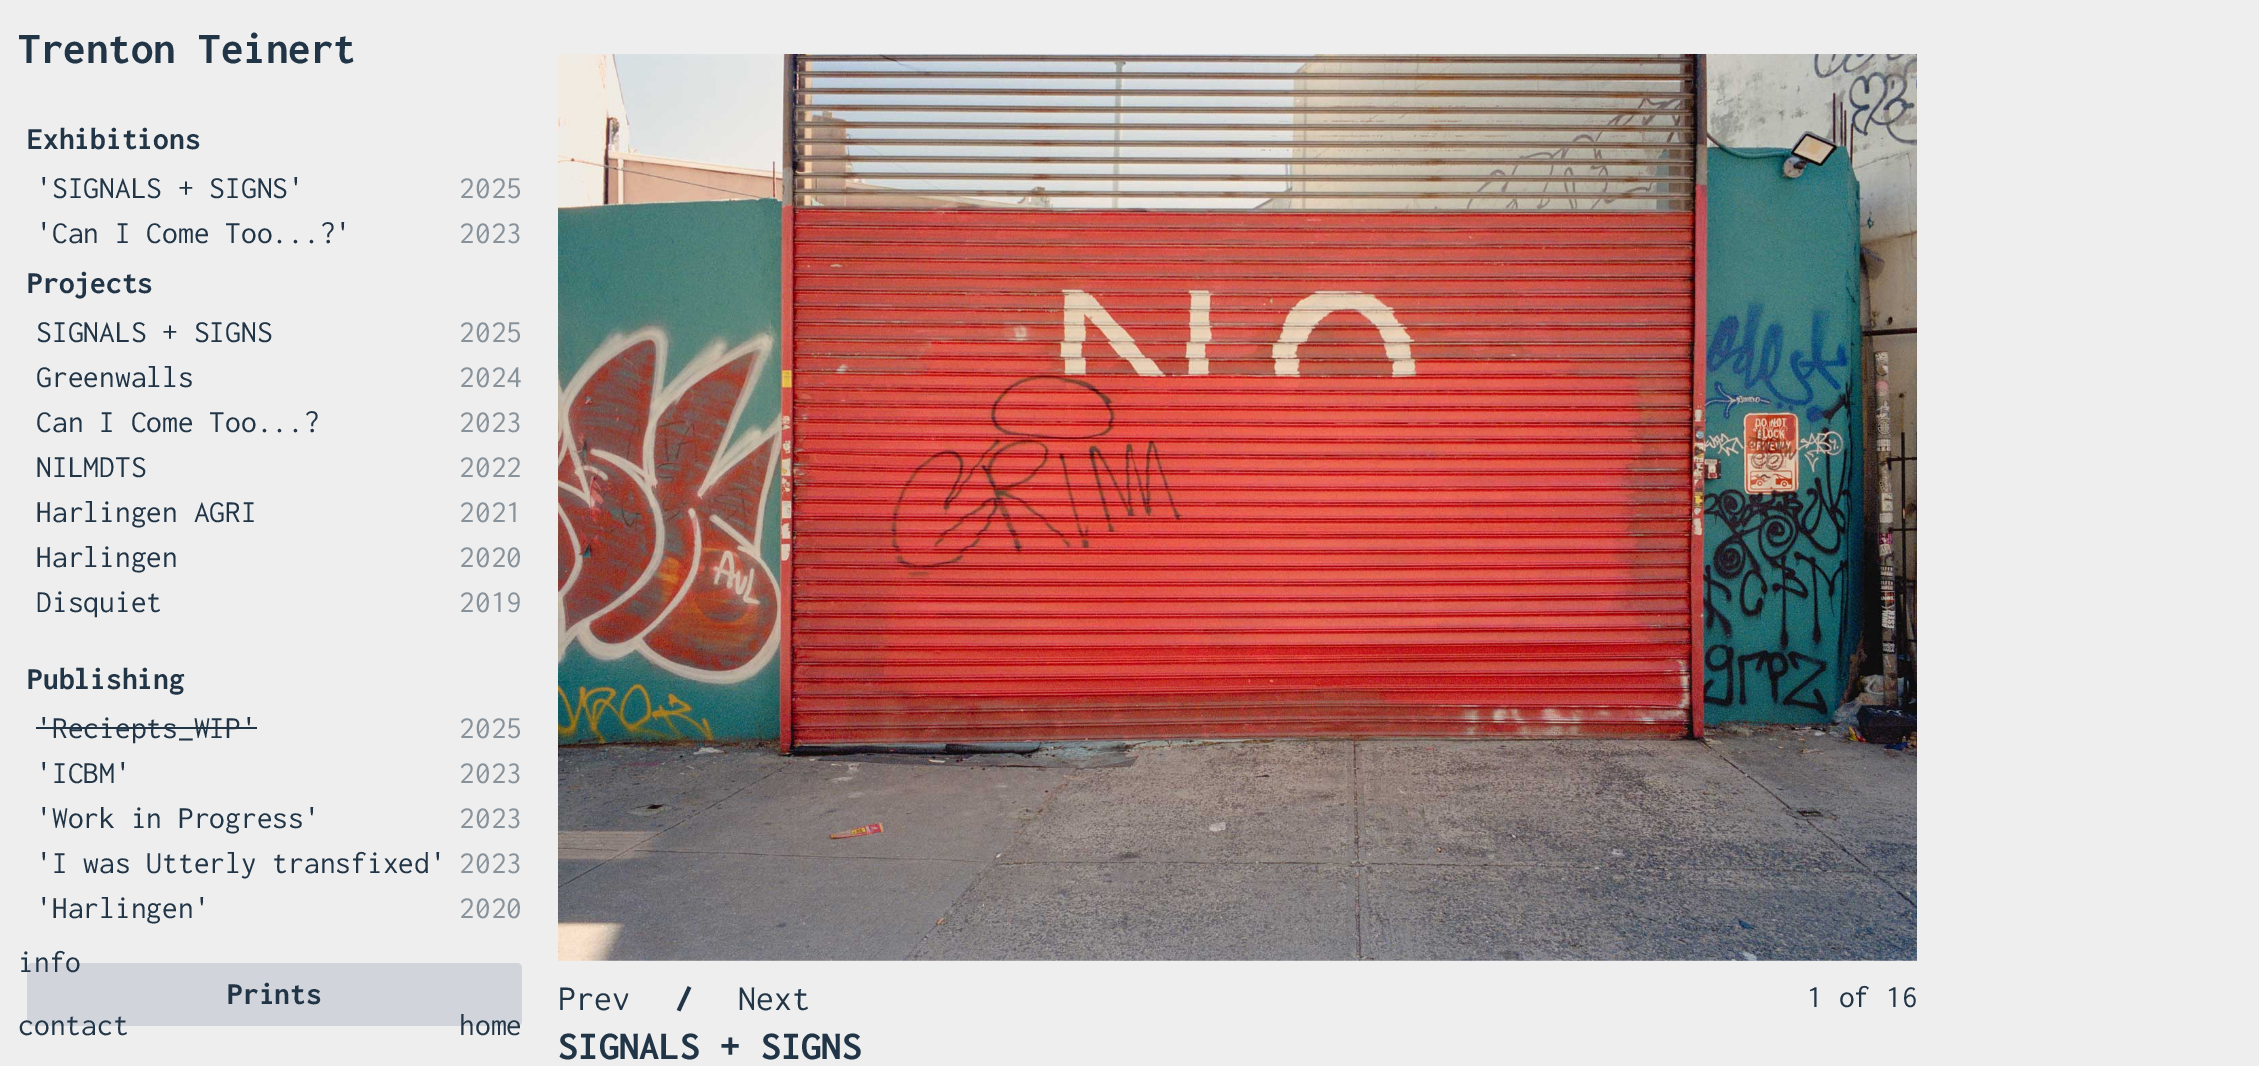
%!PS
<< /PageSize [2259 1066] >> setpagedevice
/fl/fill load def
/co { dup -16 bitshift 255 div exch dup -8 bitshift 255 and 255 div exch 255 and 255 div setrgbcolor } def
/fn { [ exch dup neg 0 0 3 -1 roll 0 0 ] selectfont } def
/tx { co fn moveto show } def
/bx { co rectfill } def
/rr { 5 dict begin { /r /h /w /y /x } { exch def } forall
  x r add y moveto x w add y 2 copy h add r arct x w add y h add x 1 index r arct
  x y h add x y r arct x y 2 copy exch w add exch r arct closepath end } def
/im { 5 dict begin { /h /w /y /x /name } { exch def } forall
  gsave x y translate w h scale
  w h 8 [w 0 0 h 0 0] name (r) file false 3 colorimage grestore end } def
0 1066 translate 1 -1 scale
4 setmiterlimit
0 0 2259 1066 16#EEEEEE bx
36 727 221 2 16#213547 bx
16#D1D5DB co
27 963 495 63 5 rr fl
(media/1.raw) 558 54 1359 907 im
(Trenton Teinert) 18 63 /Inconsolata-Bold 45 16#213547 tx
(Exhibitions) 27 149 /Inconsolata-Bold 31.5 16#213547 tx
('SIGNALS + SIGNS') 36 198 /Inconsolata-Regular 31.5 16#213547 tx
(2025) 459 198 /Inconsolata-Regular 31.5 16#88929B tx
('Can I Come Too...?') 36 243 /Inconsolata-Regular 31.5 16#213547 tx
(2023) 459 243 /Inconsolata-Regular 31.5 16#88929B tx
(Projects) 27 293 /Inconsolata-Bold 31.5 16#213547 tx
(SIGNALS + SIGNS) 36 342 /Inconsolata-Regular 31.5 16#213547 tx
(2025) 459 342 /Inconsolata-Regular 31.5 16#88929B tx
(Greenwalls) 36 387 /Inconsolata-Regular 31.5 16#213547 tx
(2024) 459 387 /Inconsolata-Regular 31.5 16#88929B tx
(Can I Come Too...?) 36 432 /Inconsolata-Regular 31.5 16#213547 tx
(2023) 459 432 /Inconsolata-Regular 31.5 16#88929B tx
(NILMDTS) 36 477 /Inconsolata-Regular 31.5 16#213547 tx
(2022) 459 477 /Inconsolata-Regular 31.5 16#88929B tx
(Harlingen AGRI) 36 522 /Inconsolata-Regular 31.5 16#213547 tx
(2021) 459 522 /Inconsolata-Regular 31.5 16#88929B tx
(Harlingen) 36 567 /Inconsolata-Regular 31.5 16#213547 tx
(2020) 459 567 /Inconsolata-Regular 31.5 16#88929B tx
(Disquiet) 36 612 /Inconsolata-Regular 31.5 16#213547 tx
(2019) 459 612 /Inconsolata-Regular 31.5 16#88929B tx
(Publishing) 27 689 /Inconsolata-Bold 31.5 16#213547 tx
('Reciepts_WIP') 36 738 /Inconsolata-Regular 31.5 16#213547 tx
(2025) 459 738 /Inconsolata-Regular 31.5 16#88929B tx
('ICBM') 36 783 /Inconsolata-Regular 31.5 16#213547 tx
(2023) 459 783 /Inconsolata-Regular 31.5 16#88929B tx
('Work in Progress') 36 828 /Inconsolata-Regular 31.5 16#213547 tx
(2023) 459 828 /Inconsolata-Regular 31.5 16#88929B tx
('I was Utterly transfixed') 36 873 /Inconsolata-Regular 31.5 16#213547 tx
(2023) 459 873 /Inconsolata-Regular 31.5 16#88929B tx
('Harlingen') 36 918 /Inconsolata-Regular 31.5 16#213547 tx
(2020) 459 918 /Inconsolata-Regular 31.5 16#88929B tx
(Prints) 227 1004 /Inconsolata-Bold 31.5 16#213547 tx
(info) 18 972 /Inconsolata-Regular 31.5 16#213547 tx
(contact) 18 1035 /Inconsolata-Regular 31.5 16#213547 tx
(home) 459 1035 /Inconsolata-Regular 31.5 16#213547 tx
(Prev) 558 1010 /Inconsolata-Regular 36 16#213547 tx
(/) 675 1010 /Inconsolata-Bold 36 16#213547 tx
(Next) 738 1010 /Inconsolata-Regular 36 16#213547 tx
(1 of 16) 1807 1007 /Inconsolata-Regular 31.5 16#213547 tx
(SIGNALS + SIGNS) 558 1059 /Inconsolata-Bold 40.5 16#213547 tx
showpage
